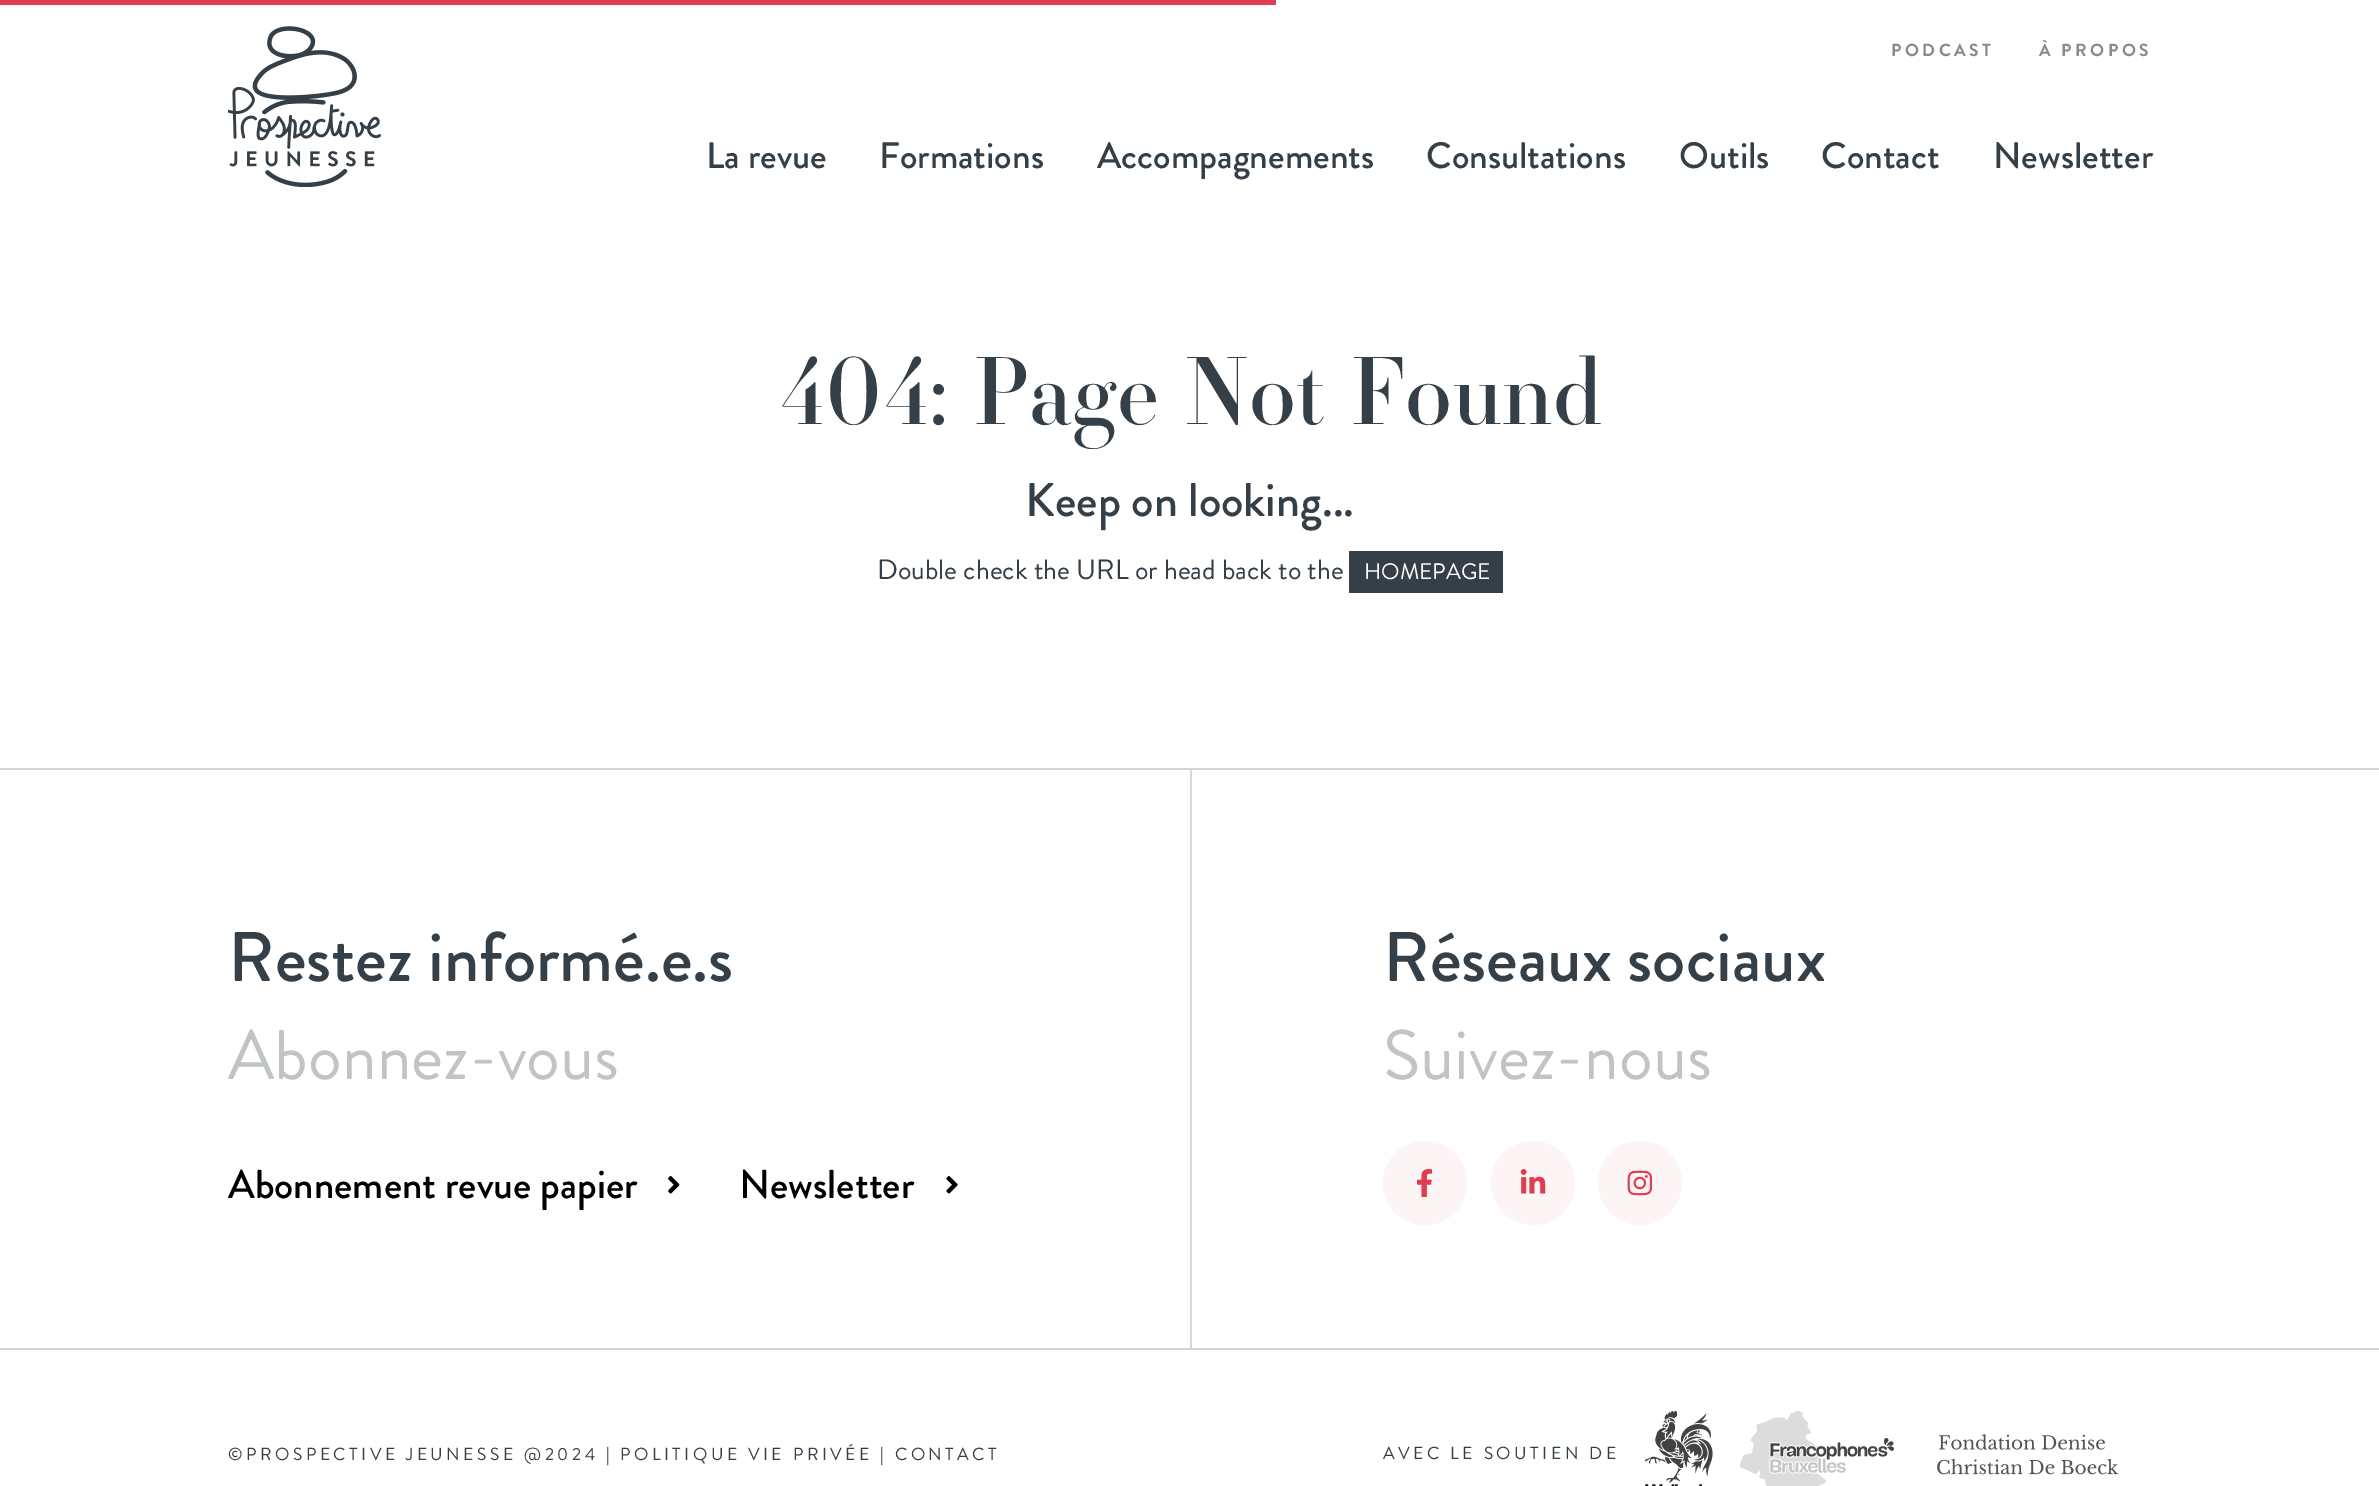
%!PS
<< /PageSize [2379 1486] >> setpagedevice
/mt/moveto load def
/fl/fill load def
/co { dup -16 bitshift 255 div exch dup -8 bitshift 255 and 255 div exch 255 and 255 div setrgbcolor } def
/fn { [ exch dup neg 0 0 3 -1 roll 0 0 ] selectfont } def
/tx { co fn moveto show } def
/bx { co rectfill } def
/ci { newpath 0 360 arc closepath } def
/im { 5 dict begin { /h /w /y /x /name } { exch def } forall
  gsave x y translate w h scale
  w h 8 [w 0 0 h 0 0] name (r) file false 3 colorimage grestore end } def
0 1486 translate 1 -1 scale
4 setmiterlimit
0 0 2379 1486 16#FFFFFF bx
0 0 1276 5 16#E03D52 bx
(media/1.raw) 228 26 153 161 im
1349 551 154 42 16#343F48 bx
0 768 2379 2 16#D4D4D4 bx
0 1348 2379 2 16#D4D4D4 bx
(media/2.raw) 668 1176 12 18 im
(media/3.raw) 946 1176 12 18 im
1190 770 2 578 16#D7D8D8 bx
16#FCF4F5 co
1425 1183 42 ci fl
(media/4.raw) 1417 1169 15 28 im
1533 1183 42 ci fl
(media/5.raw) 1520 1169 26 25 im
1640 1183 42 ci fl
(media/6.raw) 1627 1170 26 26 im
(media/7.raw) 1645 1411 68 75 im
(media/8.raw) 1740 1411 154 75 im
(media/9.raw) 1937 1434 182 41 im
/BrandonGrotesque-Bold 17.5 fn
16#858C91 co
1891 56 mt 3.5 0 (PODCAST) ashow
2039 56 mt 3.5 0 (À PROPOS) ashow
(La revue) 706 168 /BrandonGrotesque-Medium 36.75 16#343F48 tx
(Formations) 879 168 /BrandonGrotesque-Medium 36.75 16#343F48 tx
(Accompagnements) 1097 168 /BrandonGrotesque-Medium 36.75 16#343F48 tx
(Consultations) 1426 168 /BrandonGrotesque-Medium 36.75 16#343F48 tx
(Outils) 1679 168 /BrandonGrotesque-Medium 36.75 16#343F48 tx
(Contact) 1821 168 /BrandonGrotesque-Medium 36.75 16#343F48 tx
(Newsletter) 1993 168 /BrandonGrotesque-Medium 36.75 16#343F48 tx
(404: Page Not Found) 778 424 /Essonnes-Regular 91 16#343F48 tx
(Keep on looking...) 1025 516 /BrandonGrotesque-Medium 47.25 16#343F48 tx
(Double check the URL or head back to the) 877 579 /BrandonGrotesque-Regular 28 16#343F48 tx
(HOMEPAGE) 1364 579 /BrandonGrotesque-Regular 22.5 16#FFFFFF tx
(Restez informé.e.s) 228 981 /BrandonGrotesque-Medium 70 16#343F48 tx
(Abonnez-vous) 228 1079 /BrandonGrotesque-Regular 70 16#C0C4C7 tx
(Abonnement revue papier) 228 1198 /BrandonGrotesque-Medium 40.25 16#000000 tx
(Newsletter) 739 1198 /BrandonGrotesque-Medium 40.25 16#000000 tx
(Réseaux sociaux) 1383 981 /BrandonGrotesque-Medium 70 16#343F48 tx
(Suivez-nous) 1383 1079 /BrandonGrotesque-Regular 70 16#C0C4C7 tx
/BrandonGrotesque-Regular 17.5 fn
16#343F48 co
228 1460 mt 3.5 0 (©PROSPECTIVE JEUNESSE @2024 | POLITIQUE VIE PRIVÉE | CONTACT) ashow
1383 1459 mt 3.5 0 (AVEC LE SOUTIEN DE) ashow
showpage
